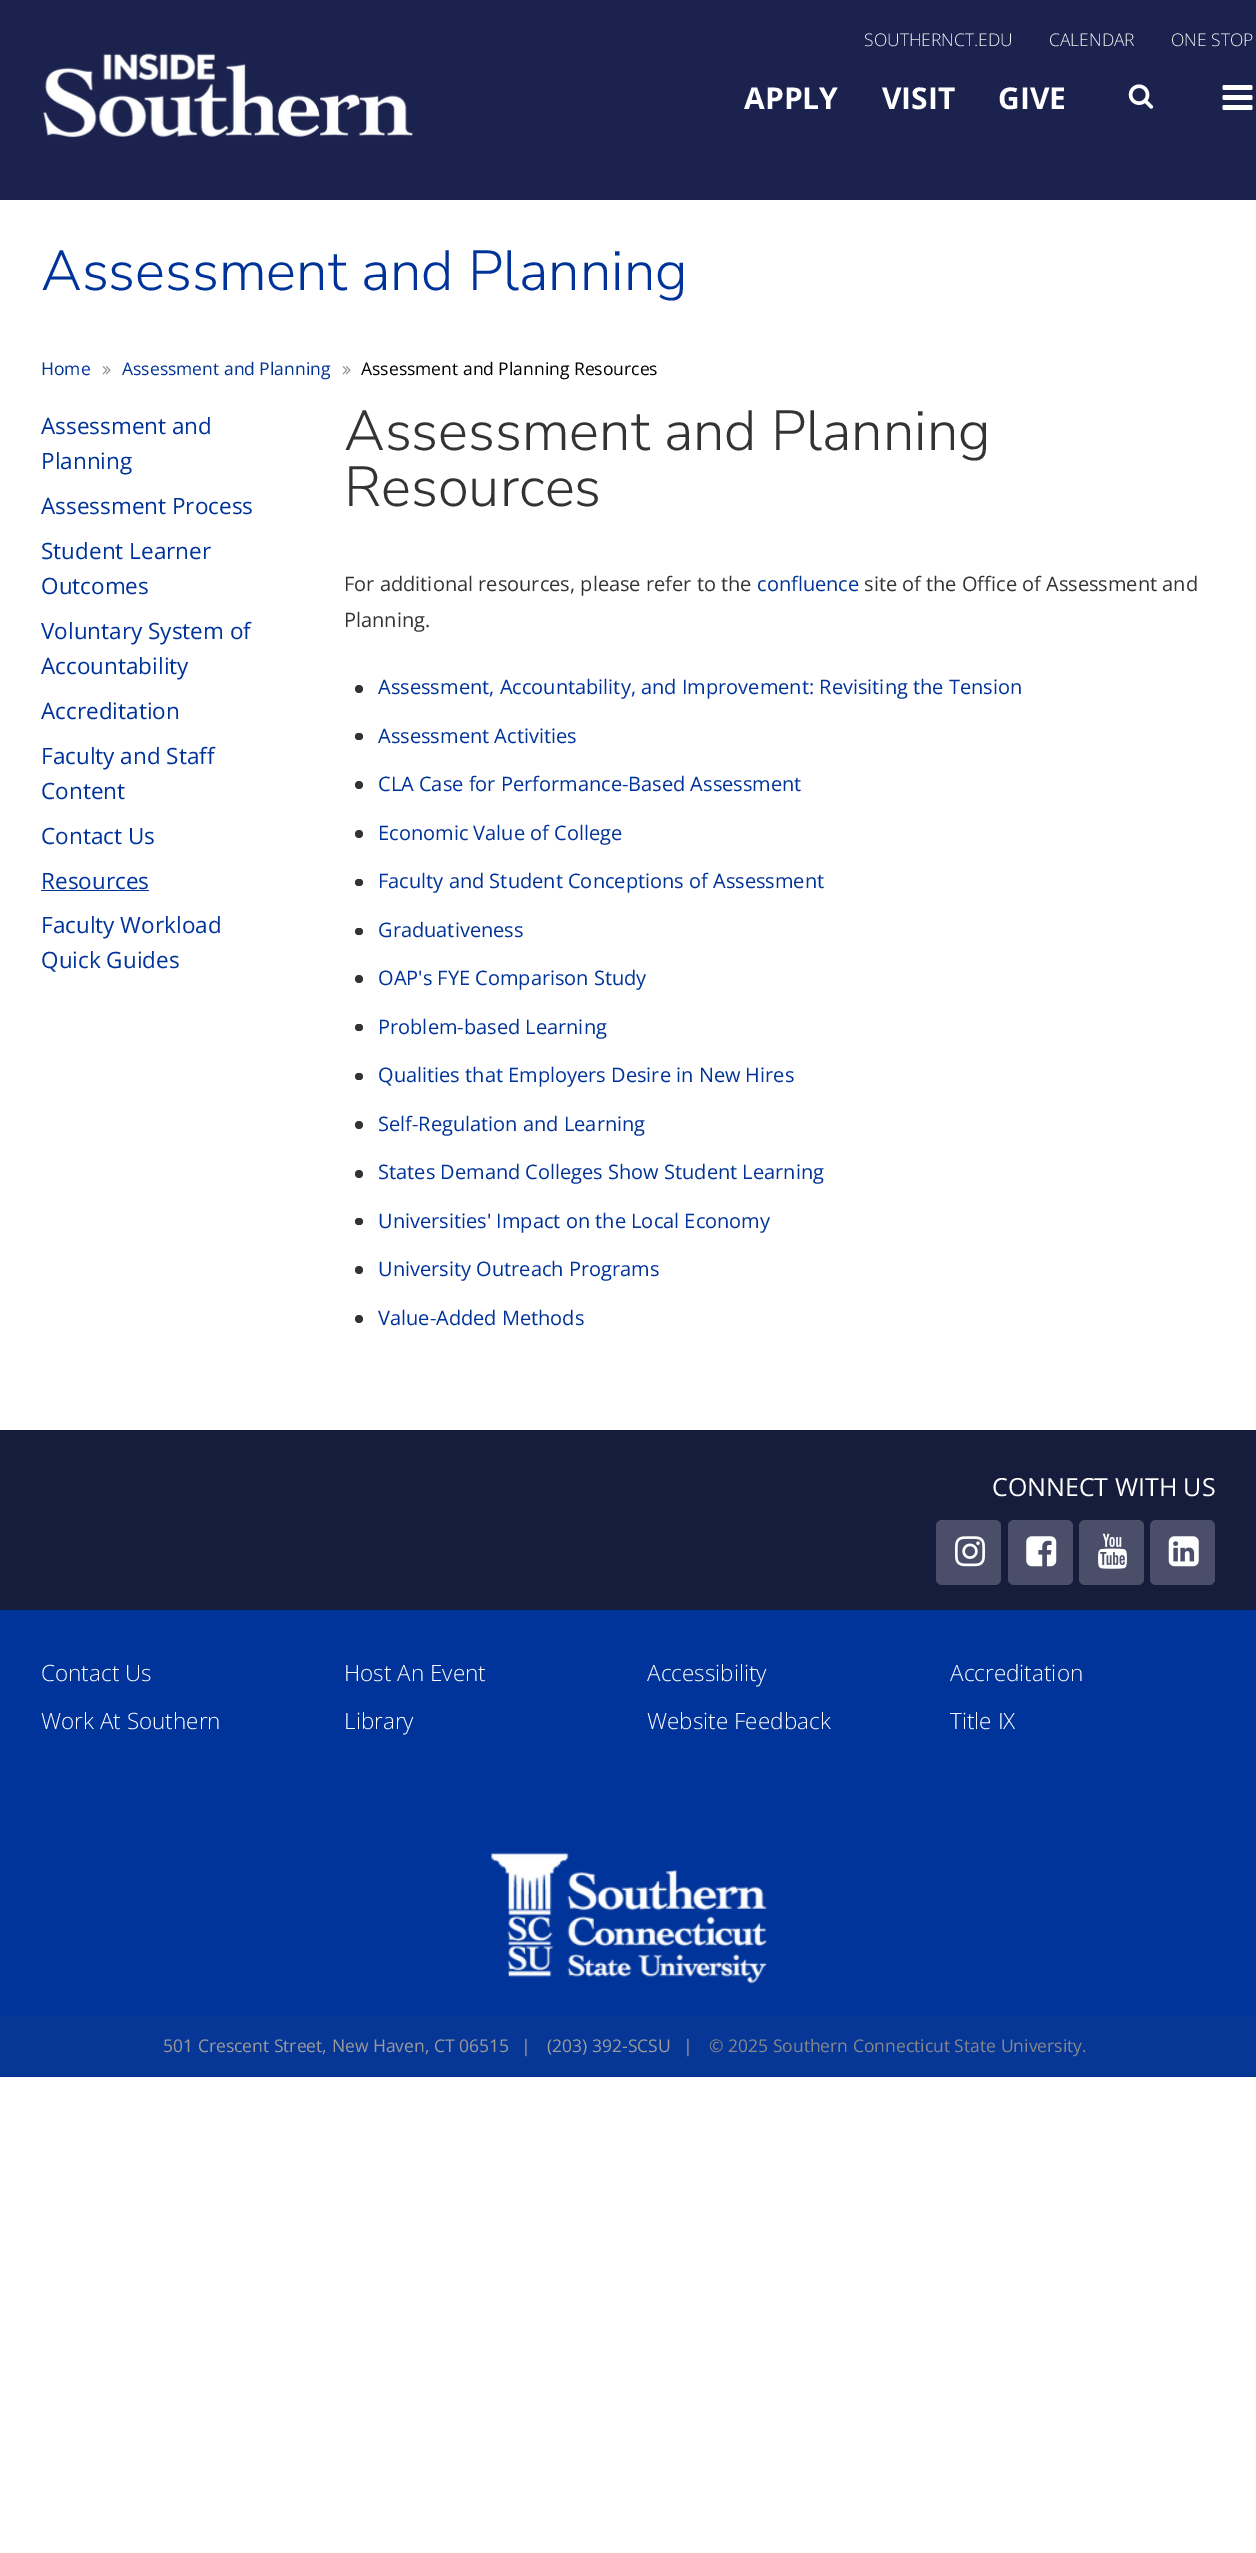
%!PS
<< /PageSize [1256 2553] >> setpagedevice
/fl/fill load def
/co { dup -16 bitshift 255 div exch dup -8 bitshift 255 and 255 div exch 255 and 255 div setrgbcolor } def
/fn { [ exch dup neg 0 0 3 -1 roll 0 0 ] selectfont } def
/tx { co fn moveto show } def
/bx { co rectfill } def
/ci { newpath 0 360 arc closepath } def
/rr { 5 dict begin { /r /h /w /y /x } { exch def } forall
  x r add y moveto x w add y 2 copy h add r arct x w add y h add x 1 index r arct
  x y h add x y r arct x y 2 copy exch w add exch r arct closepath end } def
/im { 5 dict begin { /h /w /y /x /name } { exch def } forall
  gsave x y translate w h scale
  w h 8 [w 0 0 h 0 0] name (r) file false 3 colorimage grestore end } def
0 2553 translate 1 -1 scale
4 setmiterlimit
0 0 1256 2553 16#FFFFFF bx
0 0 1256 200 16#1B224E bx
(media/1.raw) 43 53 370 85 im
(media/2.raw) 1128 84 26 25 im
(media/3.raw) 1222 85 31 25 im
(media/4.raw) 102 366 9 9 im
(media/4.raw) 342 366 9 9 im
41 890 108 1 16#003399 bx
16#333333 co
359 689 4 ci fl
355 733 8 7 3.5 rr fl
359 785 4 ci fl
359 834 4 ci fl
355 879 8 7 3.5 rr fl
355 928 8 7 3.5 rr fl
359 979 4 ci fl
355 1024 8 7 3.5 rr fl
355 1073 8 7 3.5 rr fl
359 1125 4 ci fl
359 1174 4 ci fl
355 1218 8 7 3.5 rr fl
359 1270 4 ci fl
359 1319 4 ci fl
0 1430 1256 180 16#161C3B bx
16#4A4E68 co
936 1520 65 65 6 rr fl
(media/5.raw) 955 1536 30 31 im
1008 1520 65 65 6 rr fl
(media/6.raw) 1026 1536 31 31 im
1079 1520 65 65 6 rr fl
(media/7.raw) 1098 1533 29 36 im
1150 1520 65 65 6 rr fl
(media/8.raw) 1168 1536 31 31 im
0 1610 1256 467 16#00349A bx
(media/9.raw) 491 1852 276 132 im
0 2015 1256 61 16#063796 bx
(SOUTHERNCT.EDU) 864 46 /OpenSans-Light 17.5 16#F4F5F5 tx
(CALENDAR) 1049 46 /OpenSans-Light 17.5 16#F4F5F5 tx
(ONE STOP) 1171 46 /OpenSans-Light 17.5 16#F4F5F5 tx
(APPLY) 744 109 /OpenSans-Bold 30 16#FFFFFF tx
(VISIT) 882 109 /OpenSans-Bold 30 16#FFFFFF tx
(GIVE) 998 109 /OpenSans-Bold 30 16#FFFFFF tx
(Assessment and Planning) 41 290 /NunitoSans-Light 56.25 16#003399 tx
(Home) 41 375 /OpenSans-Regular 17.5 16#003399 tx
(Assessment and Planning) 122 375 /OpenSans-Regular 17.5 16#003399 tx
(Assessment and Planning Resources) 361 375 /OpenSans-Regular 17.5 16#000000 tx
(Assessment and) 41 434 /OpenSans-Regular 22.5 16#003399 tx
(Planning) 41 469 /OpenSans-Regular 22.5 16#003399 tx
(Assessment Process) 41 514 /OpenSans-Regular 22.5 16#003399 tx
(Student Learner) 41 559 /OpenSans-Regular 22.5 16#003399 tx
(Outcomes) 41 594 /OpenSans-Regular 22.5 16#003399 tx
(Voluntary System of) 41 639 /OpenSans-Regular 22.5 16#003399 tx
(Accountability) 41 674 /OpenSans-Regular 22.5 16#003399 tx
(Accreditation) 41 719 /OpenSans-Regular 22.5 16#003399 tx
(Faculty and Staff) 41 764 /OpenSans-Regular 22.5 16#003399 tx
(Content) 41 799 /OpenSans-Regular 22.5 16#003399 tx
(Contact Us) 41 844 /OpenSans-Regular 22.5 16#003399 tx
(Resources) 41 889 /OpenSans-Regular 22.5 16#003399 tx
(Faculty Workload) 41 933 /OpenSans-Regular 22.5 16#003399 tx
(Quick Guides) 41 968 /OpenSans-Regular 22.5 16#003399 tx
(Assessment and Planning) 344 450 /NunitoSans-Light 56.25 16#333333 tx
(Resources) 344 506 /NunitoSans-Light 56.25 16#333333 tx
(For additional resources, please refer to the) 344 591 /OpenSans-Regular 20 16#333333 tx
(confluence) 757 591 /OpenSans-Regular 20 16#003399 tx
(site of the Office of Assessment and) 864 591 /OpenSans-Regular 20 16#333333 tx
(Planning.) 344 627 /OpenSans-Regular 20 16#333333 tx
(Assessment, Accountability, and Improvement: Revisiting the Tension) 378 694 /OpenSans-Regular 20 16#003399 tx
(Assessment Activities) 378 743 /OpenSans-Regular 20 16#003399 tx
(CLA Case for Performance-Based Assessment) 378 791 /OpenSans-Regular 20 16#003399 tx
(Economic Value of College) 378 840 /OpenSans-Regular 20 16#003399 tx
(Faculty and Student Conceptions of Assessment) 378 888 /OpenSans-Regular 20 16#003399 tx
(Graduativeness) 378 937 /OpenSans-Regular 20 16#003399 tx
(OAP's FYE Comparison Study) 378 985 /OpenSans-Regular 20 16#003399 tx
(Problem-based Learning) 378 1034 /OpenSans-Regular 20 16#003399 tx
(Qualities that Employers Desire in New Hires) 378 1082 /OpenSans-Regular 20 16#003399 tx
(Self-Regulation and Learning) 378 1131 /OpenSans-Regular 20 16#003399 tx
(States Demand Colleges Show Student Learning) 378 1179 /OpenSans-Regular 20 16#003399 tx
(Universities' Impact on the Local Economy) 378 1228 /OpenSans-Regular 20 16#003399 tx
(University Outreach Programs) 378 1276 /OpenSans-Regular 20 16#003399 tx
(Value-Added Methods) 378 1325 /OpenSans-Regular 20 16#003399 tx
(CONNECT WITH US) 992 1496 /OpenSans-Regular 25 16#FFFFFF tx
(Contact Us) 41 1681 /OpenSans-Light 22.5 16#FFFFFF tx
(Work At Southern) 41 1729 /OpenSans-Light 22.5 16#FFFFFF tx
(Host An Event) 344 1681 /OpenSans-Light 22.5 16#FFFFFF tx
(Library) 344 1729 /OpenSans-Light 22.5 16#FFFFFF tx
(Accessibility) 647 1681 /OpenSans-Light 22.5 16#FFFFFF tx
(Website Feedback) 647 1729 /OpenSans-Light 22.5 16#FFFFFF tx
(Accreditation) 950 1681 /OpenSans-Light 22.5 16#FFFFFF tx
(Title IX) 950 1729 /OpenSans-Light 22.5 16#FFFFFF tx
(501 Crescent Street, New Haven, CT 06515) 163 2052 /OpenSans-Regular 17.5 16#9B9B9B tx
(|) 521 2052 /OpenSans-Regular 17.5 16#9B9B9B tx
(\(203\) 392-SCSU) 547 2052 /OpenSans-Regular 17.5 16#9B9B9B tx
(|) 683 2052 /OpenSans-Regular 17.5 16#9B9B9B tx
(© 2025 Southern Connecticut State University.) 709 2052 /OpenSans-Regular 17.5 16#86878D tx
showpage
